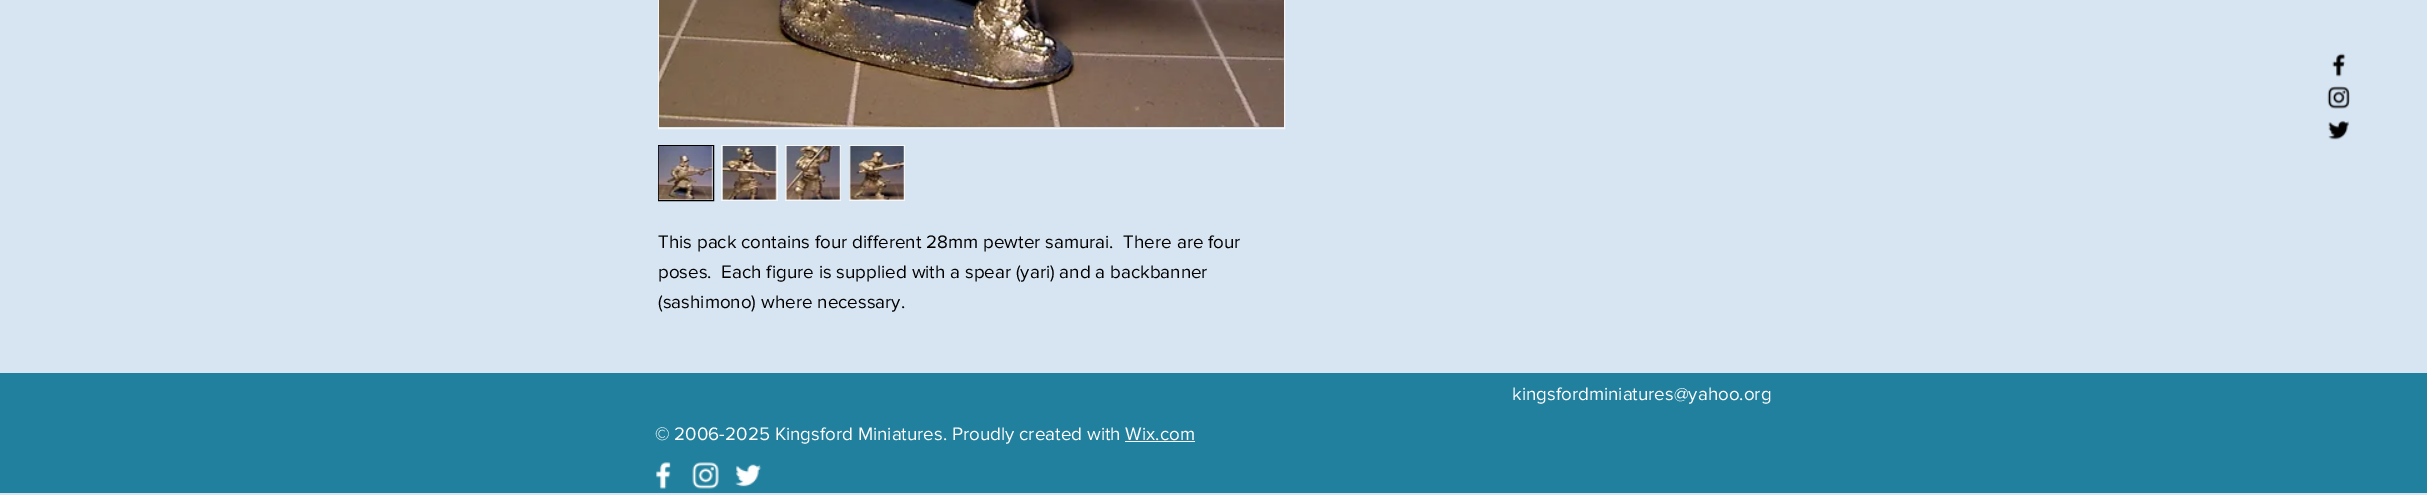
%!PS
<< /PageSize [2427 495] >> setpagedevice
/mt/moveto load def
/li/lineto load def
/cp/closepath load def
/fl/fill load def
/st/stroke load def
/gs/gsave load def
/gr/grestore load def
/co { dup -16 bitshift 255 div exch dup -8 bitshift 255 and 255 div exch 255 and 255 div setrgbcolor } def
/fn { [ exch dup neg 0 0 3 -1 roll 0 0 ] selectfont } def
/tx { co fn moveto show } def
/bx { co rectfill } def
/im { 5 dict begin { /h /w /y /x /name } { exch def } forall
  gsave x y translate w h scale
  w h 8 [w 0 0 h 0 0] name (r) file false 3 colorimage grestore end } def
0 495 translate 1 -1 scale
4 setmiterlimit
0 0 2427 495 16#D7E5F3 bx
(media/1.raw) 2332 53 14 24 im
(media/2.raw) 2327 86 23 23 im
(media/3.raw) 2328 120 22 20 im
16#F7F7F7 co
658.5 -.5 626 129 rectstroke
(media/4.raw) 659 0 625 127 im
658.5 145.5 mt 713.5 145.5 li 713.5 200.5 li 658.5 200.5 li cp gs fl gr
16#000000 co
st
(media/5.raw) 658 146 55 54 im
721 145 57 56 16#F7F7F7 bx
(media/6.raw) 722 146 55 54 im
785 145 56 56 16#F7F7F7 bx
(media/7.raw) 785 146 56 54 im
849 145 56 56 16#F7F7F7 bx
(media/8.raw) 849 146 55 54 im
0 373 2427 120 16#20809D bx
1125 441 70 1 16#FFFFFF bx
(media/9.raw) 656 462 15 27 im
(media/10.raw) 692 462 27 27 im
(media/11.raw) 735 464 27 23 im
(This pack contains four different 28mm pewter samurai.  There are four) 658 248 /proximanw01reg-Regular 18.75 16#000000 tx
(poses.  Each figure is supplied with a spear \(yari\) and a backbanner) 658 278 /proximanw01reg-Regular 18.75 16#000000 tx
(\(sashimono\) where necessary.) 658 308 /proximanw01reg-Regular 18.75 16#000000 tx
(kingsfordminiatures@yahoo.org) 1512 400 /proximanw01reg-Regular 18.75 16#FFFFFF tx
(© 2006-2025 Kingsford Miniatures. Proudly created with Wix.com) 655 440 /proximanw01reg-Regular 18.75 16#FFFFFF tx
showpage
